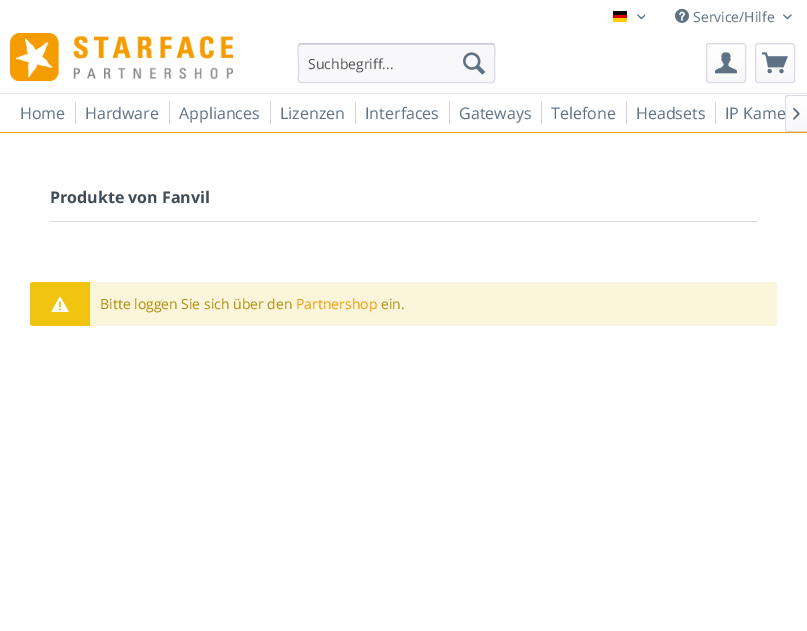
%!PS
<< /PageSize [807 631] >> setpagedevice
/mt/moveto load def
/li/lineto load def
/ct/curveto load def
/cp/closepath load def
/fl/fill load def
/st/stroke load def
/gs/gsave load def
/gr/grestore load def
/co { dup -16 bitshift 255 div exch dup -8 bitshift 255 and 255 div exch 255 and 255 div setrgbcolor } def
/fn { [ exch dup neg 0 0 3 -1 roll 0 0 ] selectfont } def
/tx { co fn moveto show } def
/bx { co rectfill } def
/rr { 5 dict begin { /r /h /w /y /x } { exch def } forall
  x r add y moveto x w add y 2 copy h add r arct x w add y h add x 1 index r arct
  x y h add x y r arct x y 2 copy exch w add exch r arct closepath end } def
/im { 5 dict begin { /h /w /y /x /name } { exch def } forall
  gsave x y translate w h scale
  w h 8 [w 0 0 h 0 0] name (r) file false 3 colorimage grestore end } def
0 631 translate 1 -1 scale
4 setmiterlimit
0 0 807 631 16#FFFFFF bx
613 11 14 4 16#000000 bx
613 15 14 3 16#DD0000 bx
613 18 14 4 16#FFCE00 bx
(media/1.raw) 637 14 8 6 im
(media/2.raw) 675 8 14 15 im
(media/3.raw) 783 14 9 6 im
(media/4.raw) 10 33 223 48 im
16#F8F8FA co
298 43 197 40 3 rr fl
16#DADAE5 co
301 45 mt 492 45 li 494 46 li 494 47 li 494 46 li 494 45 493 44 492 44 ct 301 44 li 300 44 299 45 299 46 ct 299 47 li 299 46 300 45 301 45 ct cp fl
16#CBCBDB co
299 44 mt 301 43.5 li 492 43.5 li 494 44 li st
16#DADAE5 co
494 44 mt 495.5 46 494.5 60 494.5 63 ct 494.5 74.5 li 494.5 76 496 82.5 492 82.5 ct 301 82.5 li 297 82.5 298.5 76 298.5 74.5 ct 298.5 63 li 298.5 60 297.5 46 299 44 ct st
(media/5.raw) 463 52 22 23 im
gs 707 44 38 38 2 rr clip newpath
<< /ShadingType 2 /ColorSpace /DeviceRGB /Coords [726 44 726 82] /Extend [true true] /Function << /FunctionType 2 /Domain [0 1] /C0 [1 1 1] /C1 [.973 .973 .98] /N 1 >> >> shfill gr
706.5 43.5 39 39 2.5 rr st
(media/6.raw) 715 52 22 22 im
gs 756 44 38 38 2 rr clip newpath
<< /ShadingType 2 /ColorSpace /DeviceRGB /Coords [775 44 775 82] /Extend [true true] /Function << /FunctionType 2 /Domain [0 1] /C0 [1 1 1] /C1 [.973 .973 .98] /N 1 >> >> shfill gr
755.5 43.5 39 39 2.5 rr st
(media/7.raw) 762 52 26 22 im
0 93 807 1 16#E9E9E9 bx
0 132 807 1 16#F59B00 bx
75 102 1 22 16#D2D2D2 bx
169 102 1 22 16#D2D2D2 bx
270 102 1 22 16#D2D2D2 bx
355 102 1 22 16#D2D2D2 bx
449 102 1 22 16#D2D2D2 bx
541 102 1 22 16#D2D2D2 bx
626 102 1 22 16#D2D2D2 bx
715 102 1 22 16#D2D2D2 bx
gs 788 96 mt 807 96 li 807 131 li 788 131 li 787 131 786 130 786 129 ct 786 98 li 786 97 787 96 788 96 ct cp clip newpath
<< /ShadingType 2 /ColorSpace /DeviceRGB /Coords [797 96 797 131] /Extend [true true] /Function << /FunctionType 2 /Domain [0 1] /C0 [1 1 1] /C1 [.973 .973 .98] /N 1 >> >> shfill gr
16#DADAE5 co
788 95 mt 807 95 li 807 132 li 788 132 li 786.5 132 785 130.5 785 129 ct 785 98 li 785 96.5 786.5 95 788 95 ct cp 788 96 mt 807 96 li 807 131 li 788 131 li 787 131 786 130 786 129 ct 786 98 li 786 97 787 96 788 96 ct cp eofill
(media/8.raw) 793 107 7 13 im
50 221 707 1 16#DADAE5 bx
16#FBF5DB co
30 282 747 44 3 rr fl
16#F1C40F co
33 282 mt 90 282 li 90 326 li 33 326 li 31.5 326 30 324.5 30 323 ct 30 285 li 30 283.5 31.5 282 33 282 ct cp fl
(media/9.raw) 51 296 18 16 im
(Service/Hilfe) 693 22 /OpenSans-Regular 14 16#5F7285 tx
(Suchbegriff...) 308 69 /OpenSans-Regular 14 16#555555 tx
(Home) 20 119 /OpenSans-Regular 16 16#5F7285 tx
(Hardware) 85 119 /OpenSans-Regular 16 16#5F7285 tx
(Appliances) 179 119 /OpenSans-Regular 16 16#5F7285 tx
(Lizenzen) 280 119 /OpenSans-Regular 16 16#5F7285 tx
(Interfaces) 365 119 /OpenSans-Regular 16 16#5F7285 tx
(Gateways) 459 119 /OpenSans-Regular 16 16#5F7285 tx
(Telefone) 551 119 /OpenSans-Regular 16 16#5F7285 tx
(Headsets) 636 119 /OpenSans-Regular 16 16#5F7285 tx
(IP Kame) 725 119 /OpenSans-Regular 16 16#5F7285 tx
(Produkte von Fanvil) 50 203 /OpenSans-Bold 16 16#3F4C58 tx
(Bitte loggen Sie sich über den) 100 309 /OpenSans-Regular 14 16#AE8E0A tx
(Partnershop) 296 309 /OpenSans-Regular 14 16#F59B00 tx
(ein.) 381 309 /OpenSans-Regular 14 16#AE8E0A tx
showpage
